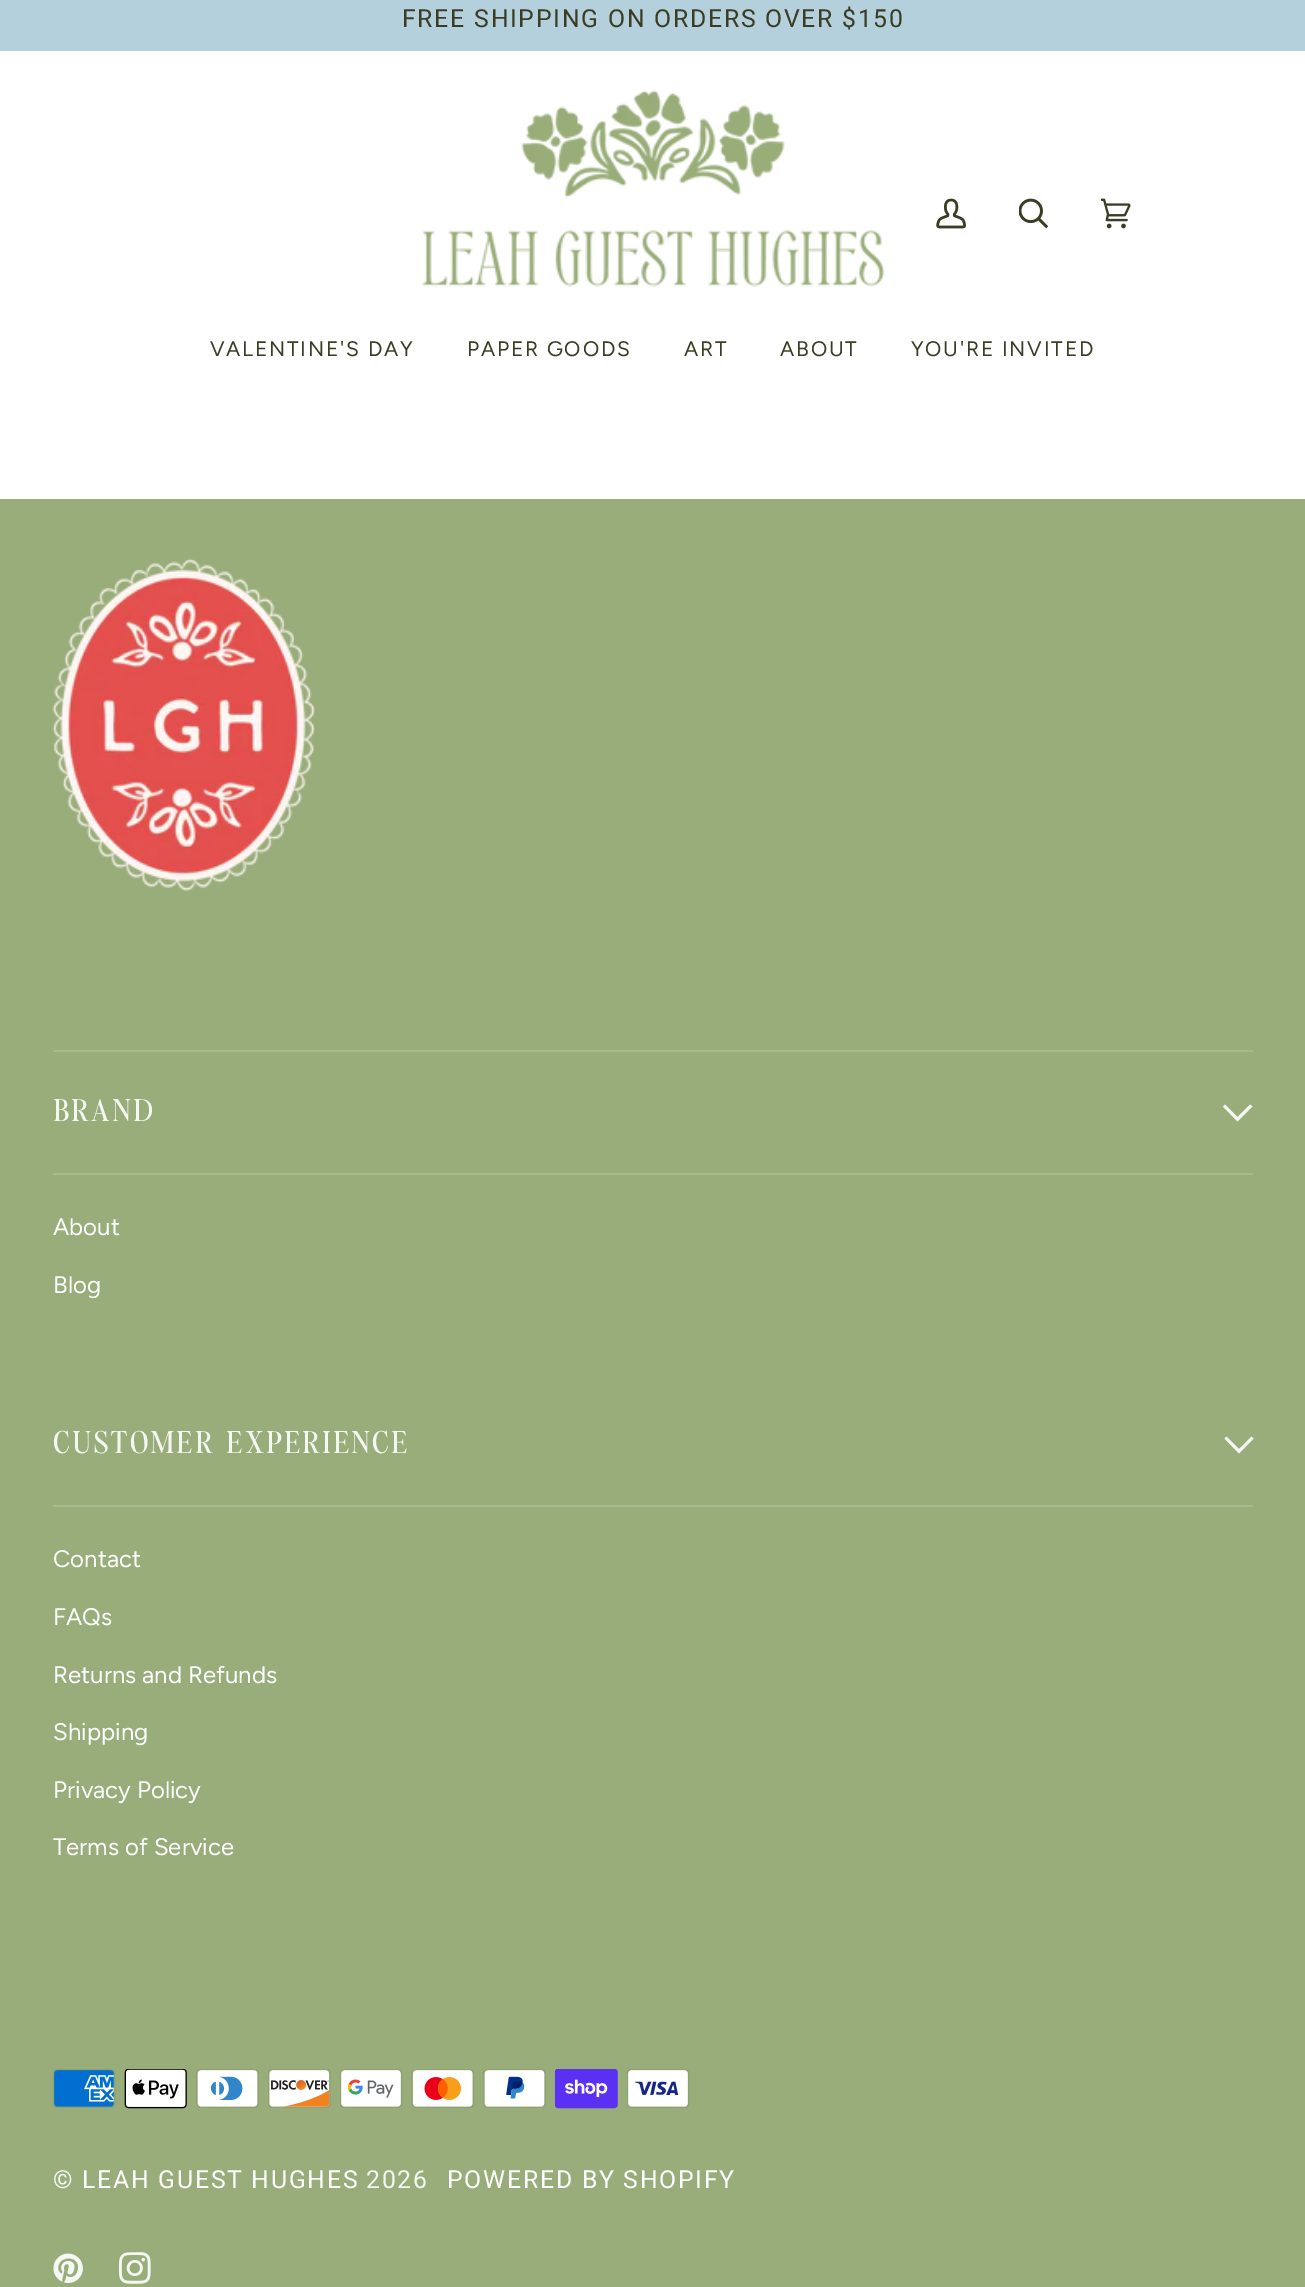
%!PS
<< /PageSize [1305 2287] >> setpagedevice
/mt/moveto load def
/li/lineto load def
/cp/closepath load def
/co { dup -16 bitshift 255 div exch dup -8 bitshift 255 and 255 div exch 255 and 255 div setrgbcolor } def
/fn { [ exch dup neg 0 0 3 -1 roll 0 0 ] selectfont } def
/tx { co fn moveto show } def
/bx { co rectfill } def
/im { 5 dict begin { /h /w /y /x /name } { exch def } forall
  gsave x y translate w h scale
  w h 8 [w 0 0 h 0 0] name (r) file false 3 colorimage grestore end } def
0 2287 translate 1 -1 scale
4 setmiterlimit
0 0 1305 2287 16#FFFFFF bx
0 0 1305 51 16#B5D0DD bx
(media/1.raw) 422 90 463 197 im
(media/2.raw) 936 198 30 31 im
(media/3.raw) 1019 198 29 31 im
(media/4.raw) 1101 198 30 31 im
0 499 1305 1788 16#99AD7A bx
(media/5.raw) 52 558 263 333 im
53 1050 1200 2 16#A8B98E bx
53 1173 1200 2 16#A8B98E bx
16#F5F7F2 co
1237.5 1117 mt 1250 1104.5 li 1252.5 1106.5 li 1237.5 1121.5 li 1223 1106.5 li 1225 1104.5 li cp eofill
53 1505 1200 2 16#A8B98E bx
16#F5F7F2 co
1239 1449 mt 1251.5 1436.5 li 1253.5 1438.5 li 1239 1453.5 li 1224.5 1438.5 li 1226.5 1436.5 li cp eofill
(media/6.raw) 53 2069 63 39 im
(media/7.raw) 124 2069 63 40 im
(media/8.raw) 196 2069 63 39 im
(media/9.raw) 268 2069 63 39 im
(media/10.raw) 340 2069 63 39 im
(media/11.raw) 411 2069 63 39 im
(media/12.raw) 483 2069 63 39 im
(media/13.raw) 555 2069 63 40 im
(media/14.raw) 627 2069 63 39 im
(media/15.raw) 53 2253 30 30 im
(media/16.raw) 119 2252 32 32 im
/Roboto-Regular 24.8 fn
16#3A3D24 co
402 27 mt 1.75 0 (FREE SHIPPING ON ORDERS OVER $150) ashow
/Figtree-Regular 21 fn
210 356 mt 1.75 0 (VALENTINE'S DAY) ashow
467 356 mt 1.75 0 (PAPER GOODS) ashow
684 356 mt 1.75 0 (ART) ashow
780 356 mt 1.75 0 (ABOUT) ashow
911 356 mt 1.75 0 (YOU'RE INVITED) ashow
/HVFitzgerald-Bold 31.25 fn
16#F5F7F2 co
53 1121 mt 1.75 0 (BRAND) ashow
(About) 53 1235 /Figtree-Regular 24 16#FFFFFF tx
(Blog) 53 1293 /Figtree-Regular 24 16#FFFFFF tx
/HVFitzgerald-Bold 31.25 fn
16#F5F7F2 co
53 1453 mt 1.75 0 (CUSTOMER EXPERIENCE) ashow
(Contact) 53 1567 /Figtree-Regular 24 16#FFFFFF tx
(FAQs) 53 1625 /Figtree-Regular 24 16#FFFFFF tx
(Returns and Refunds) 53 1683 /Figtree-Regular 24 16#FFFFFF tx
(Shipping) 53 1740 /Figtree-Regular 24 16#FFFFFF tx
(Privacy Policy) 53 1798 /Figtree-Regular 24 16#FFFFFF tx
(Terms of Service) 53 1855 /Figtree-Regular 24 16#FFFFFF tx
/Roboto-Regular 24.8 fn
16#F5F7F2 co
53 2188 mt 1.75 0 (©) ashow
16#FFFFFF co
82 2188 mt 1.75 0 (LEAH GUEST HUGHES) ashow
16#F5F7F2 co
366 2188 mt 1.75 0 (2026) ashow
16#FFFFFF co
447 2188 mt 1.75 0 (POWERED BY SHOPIFY) ashow
showpage
